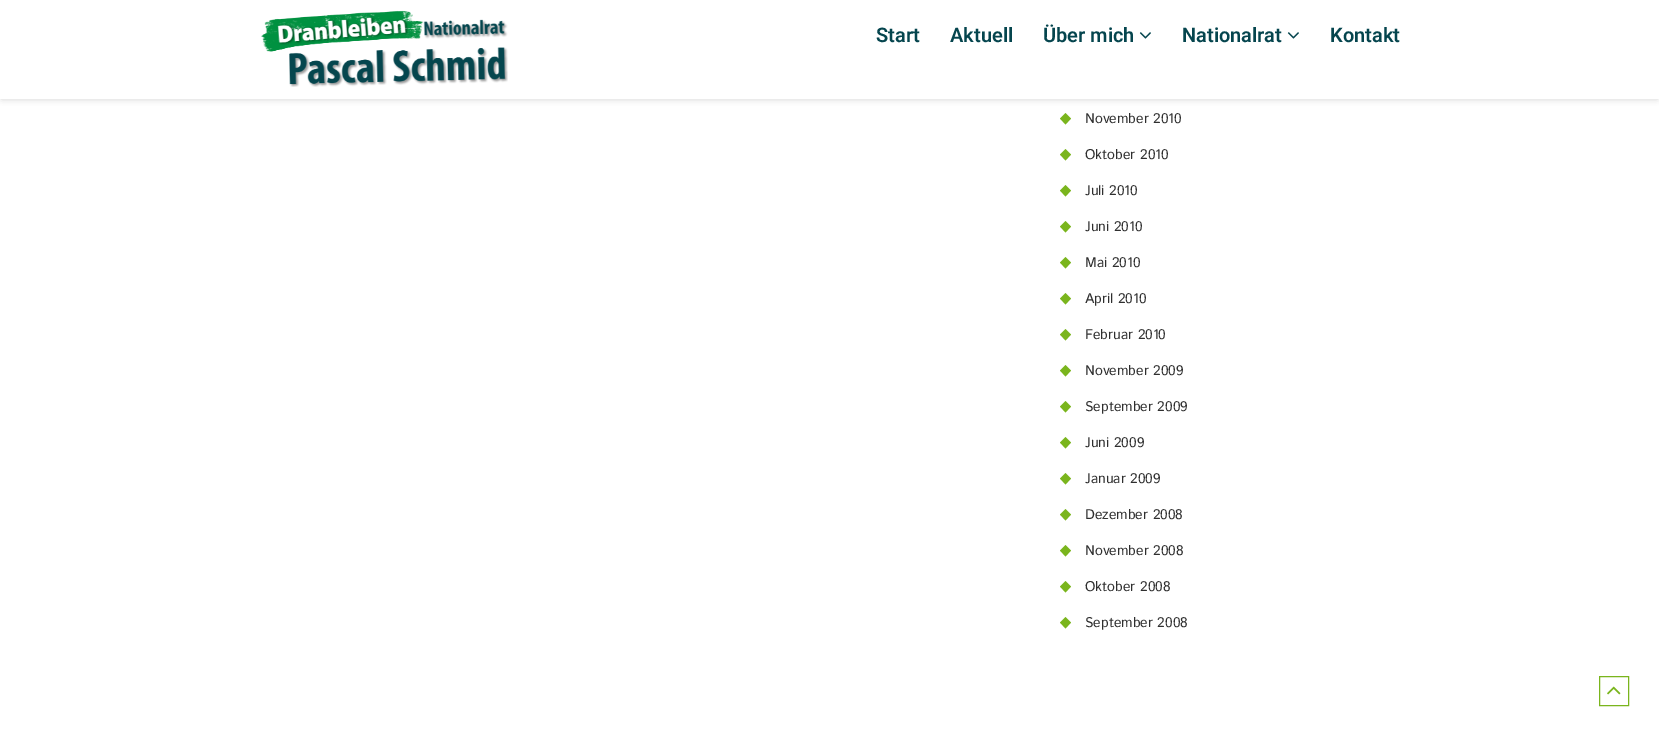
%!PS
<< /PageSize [1659 736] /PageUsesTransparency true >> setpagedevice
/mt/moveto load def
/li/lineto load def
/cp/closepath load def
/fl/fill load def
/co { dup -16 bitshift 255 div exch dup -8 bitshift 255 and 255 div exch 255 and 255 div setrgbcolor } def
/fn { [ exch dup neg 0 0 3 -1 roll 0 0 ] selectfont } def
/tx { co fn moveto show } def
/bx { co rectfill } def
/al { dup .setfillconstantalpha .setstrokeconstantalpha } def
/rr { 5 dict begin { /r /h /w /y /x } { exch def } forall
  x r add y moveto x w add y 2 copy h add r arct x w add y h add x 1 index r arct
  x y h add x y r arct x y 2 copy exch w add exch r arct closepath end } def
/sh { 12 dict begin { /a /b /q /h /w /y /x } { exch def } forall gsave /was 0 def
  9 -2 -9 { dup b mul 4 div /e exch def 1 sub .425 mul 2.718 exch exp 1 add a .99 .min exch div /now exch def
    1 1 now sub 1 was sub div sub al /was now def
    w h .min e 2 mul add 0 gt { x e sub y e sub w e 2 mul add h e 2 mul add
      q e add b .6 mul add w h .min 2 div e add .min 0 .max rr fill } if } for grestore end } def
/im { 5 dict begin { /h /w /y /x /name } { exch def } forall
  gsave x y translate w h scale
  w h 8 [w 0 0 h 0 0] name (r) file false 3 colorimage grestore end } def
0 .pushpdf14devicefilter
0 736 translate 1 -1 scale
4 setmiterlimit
0 0 1659 736 16#FFFFFF bx
16#000000 co
2 3 1655 95 0 3.5 .25 sh
0 0 1659 99 16#FFFFFF bx
(media/1.raw) 261 10 247 77 im
(media/2.raw) 1139 32 12 7 im
(media/2.raw) 1287 32 12 7 im
16#7AB51D co
1065.5 113 mt 1071 118.5 li 1065.5 124.5 li 1060 118.5 li cp 1065.5 149 mt 1071 154.5 li 1065.5 160.5 li 1060 154.5 li cp fl
1065.5 185 mt 1071 190.5 li 1065.5 196.5 li 1060 190.5 li cp 1065.5 221 mt 1071 226.5 li 1065.5 232.5 li 1060 226.5 li cp fl
1065.5 257 mt 1071 262.5 li 1065.5 268.5 li 1060 262.5 li cp 1065.5 293 mt 1071 298.5 li 1065.5 304.5 li 1060 298.5 li cp fl
1065.5 329 mt 1071 334.5 li 1065.5 340.5 li 1060 334.5 li cp 1065.5 365 mt 1071 370.5 li 1065.5 376.5 li 1060 370.5 li cp fl
1065.5 401 mt 1071 406.5 li 1065.5 412.5 li 1060 406.5 li cp 1065.5 437 mt 1071 442.5 li 1065.5 448.5 li 1060 442.5 li cp fl
1065.5 473 mt 1071 478.5 li 1065.5 484.5 li 1060 478.5 li cp 1065.5 509 mt 1071 514.5 li 1065.5 520.5 li 1060 514.5 li cp fl
1065.5 545 mt 1071 550.5 li 1065.5 556.5 li 1060 550.5 li cp 1065.5 581 mt 1071 586.5 li 1065.5 592.5 li 1060 586.5 li cp fl
1065.5 617 mt 1071 622.5 li 1065.5 628.5 li 1060 622.5 li cp fl
1599.5 676.5 29 29 rectstroke
(media/3.raw) 1607 686 14 9 im
(Start) 876 42 /Roboto-SemiBold 20 16#05454E tx
(Aktuell) 950 42 /Roboto-SemiBold 20 16#05454E tx
(Über mich) 1043 42 /Roboto-SemiBold 20 16#05454E tx
(Nationalrat) 1182 42 /Roboto-SemiBold 20 16#05454E tx
(Kontakt) 1330 42 /Roboto-SemiBold 20 16#05454E tx
(November 2010) 1085 123 /IstokWeb-Regular 14 16#2F2F2F tx
(Oktober 2010) 1085 159 /IstokWeb-Regular 14 16#2F2F2F tx
(Juli 2010) 1085 195 /IstokWeb-Regular 14 16#2F2F2F tx
(Juni 2010) 1085 231 /IstokWeb-Regular 14 16#2F2F2F tx
(Mai 2010) 1085 267 /IstokWeb-Regular 14 16#2F2F2F tx
(April 2010) 1085 303 /IstokWeb-Regular 14 16#2F2F2F tx
(Februar 2010) 1085 339 /IstokWeb-Regular 14 16#2F2F2F tx
(November 2009) 1085 375 /IstokWeb-Regular 14 16#2F2F2F tx
(September 2009) 1085 411 /IstokWeb-Regular 14 16#2F2F2F tx
(Juni 2009) 1085 447 /IstokWeb-Regular 14 16#2F2F2F tx
(Januar 2009) 1085 483 /IstokWeb-Regular 14 16#2F2F2F tx
(Dezember 2008) 1085 519 /IstokWeb-Regular 14 16#2F2F2F tx
(November 2008) 1085 555 /IstokWeb-Regular 14 16#2F2F2F tx
(Oktober 2008) 1085 591 /IstokWeb-Regular 14 16#2F2F2F tx
(September 2008) 1085 627 /IstokWeb-Regular 14 16#2F2F2F tx
.poppdf14devicefilter showpage
